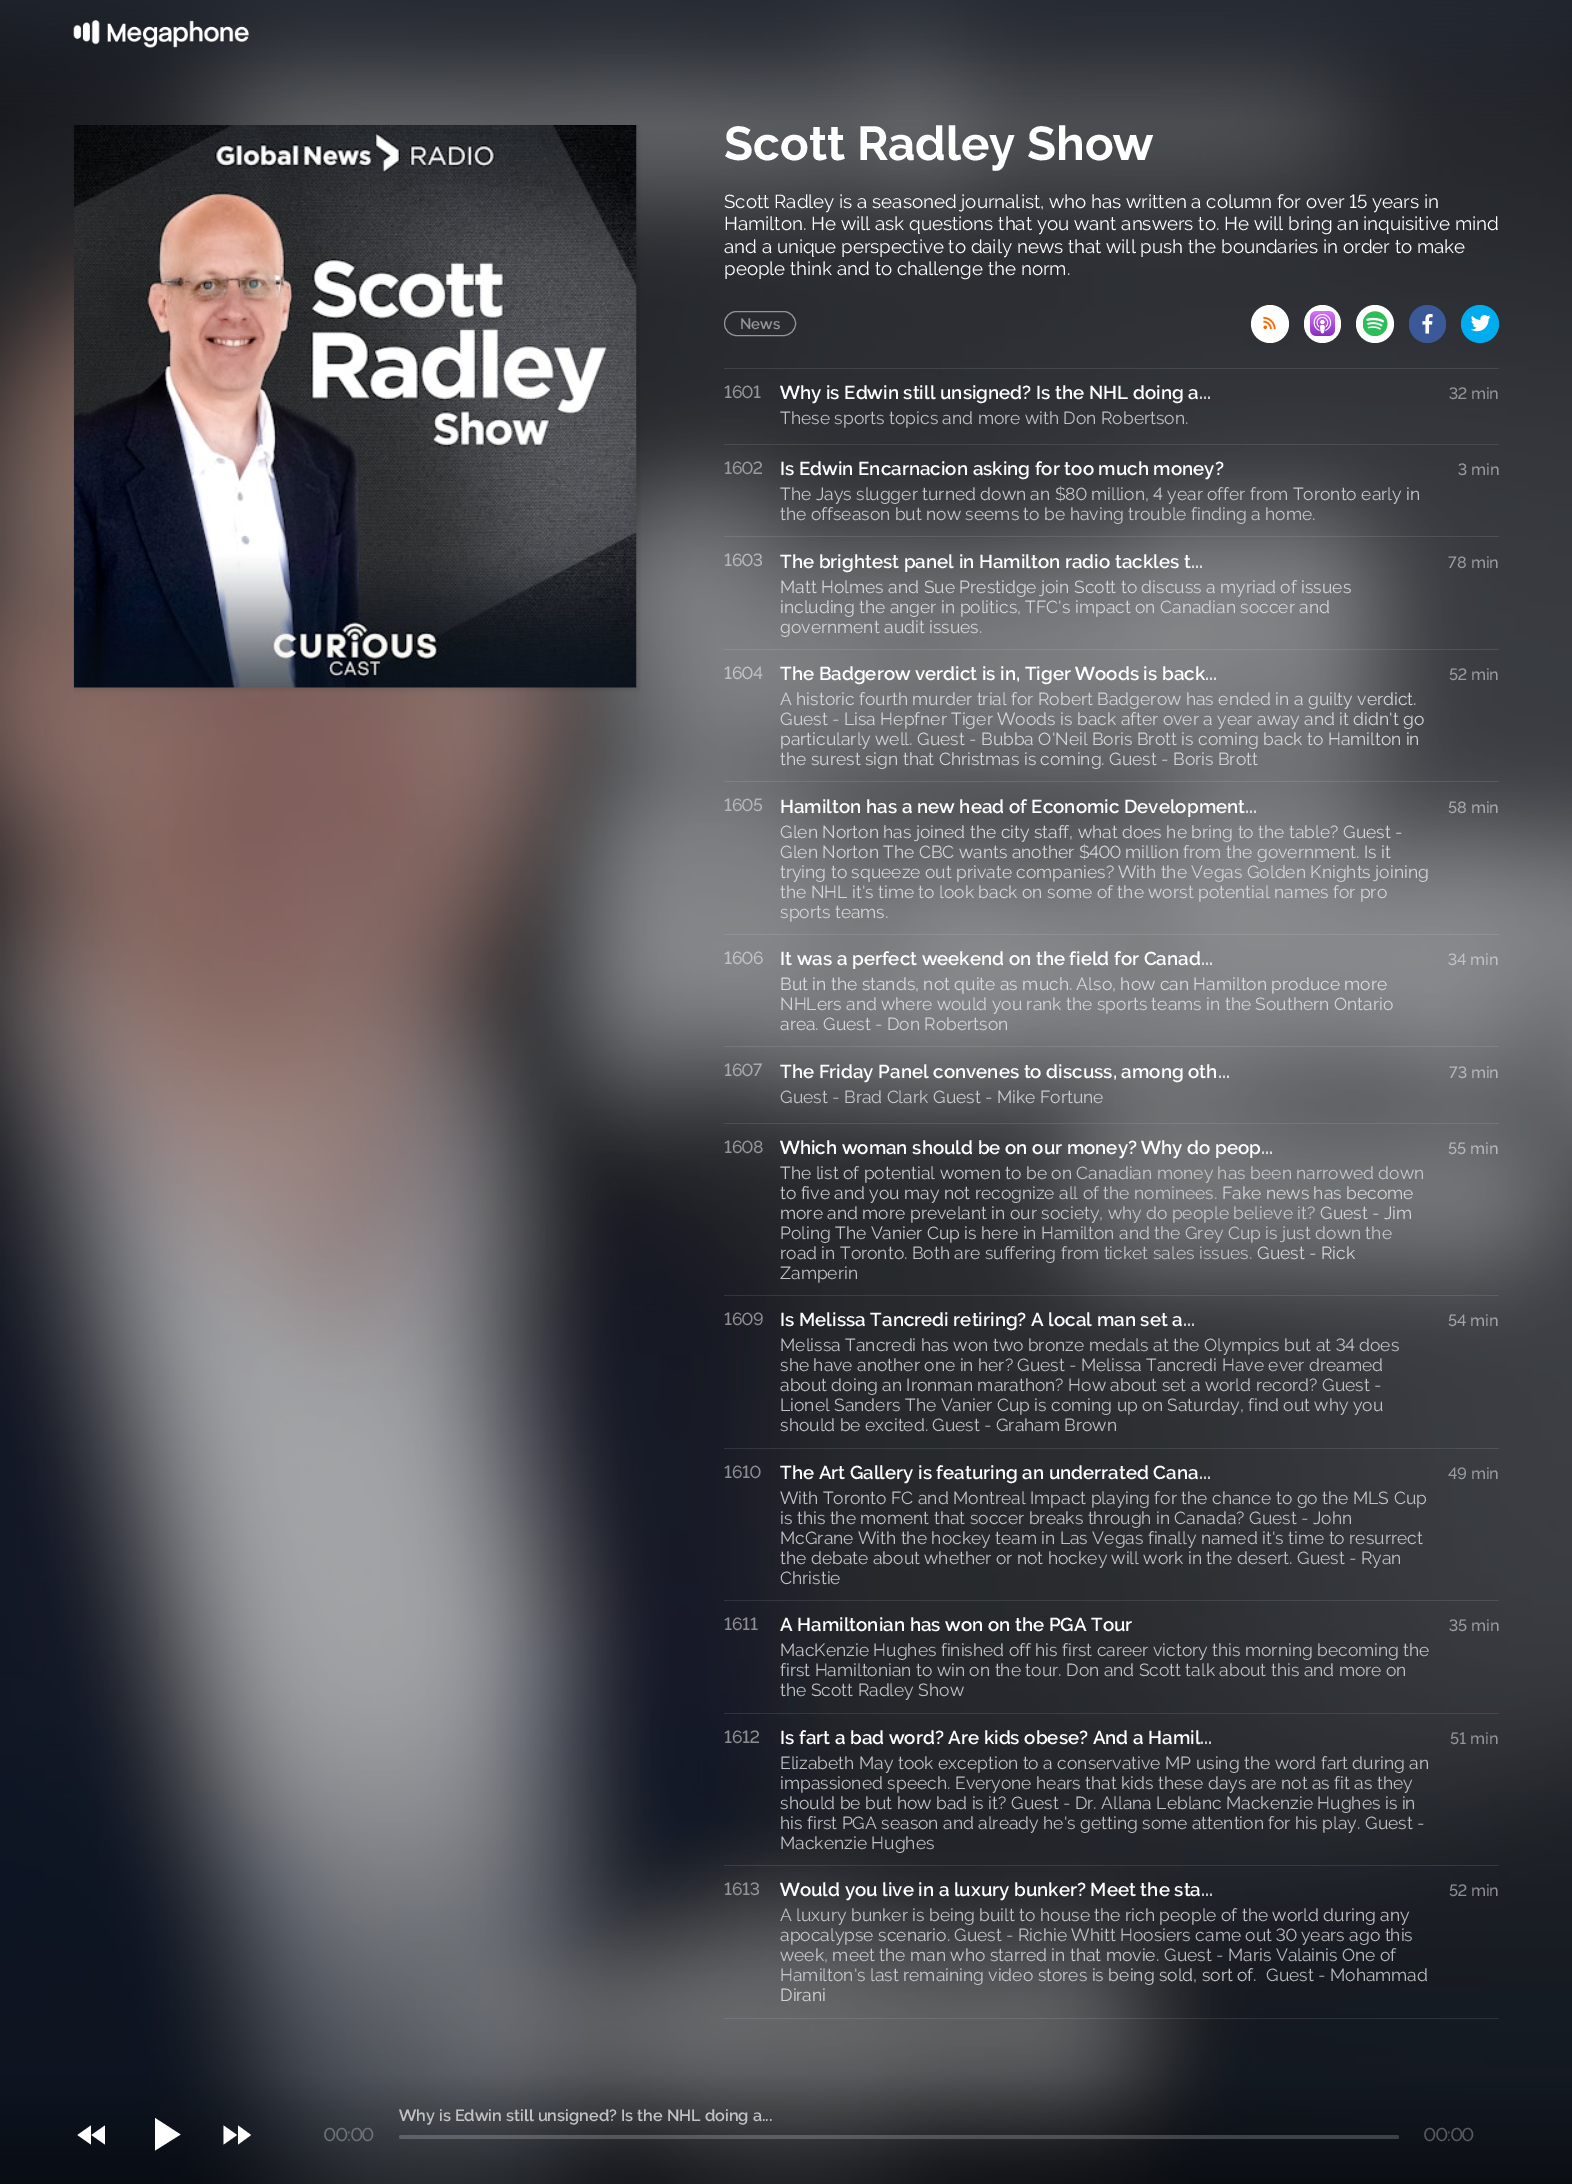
%!PS
<< /PageSize [1572 2184] /PageUsesTransparency true >> setpagedevice
/mt/moveto load def
/li/lineto load def
/cp/closepath load def
/fl/fill load def
/st/stroke load def
/gs/gsave load def
/gr/grestore load def
/co { dup -16 bitshift 255 div exch dup -8 bitshift 255 and 255 div exch 255 and 255 div setrgbcolor } def
/fn { [ exch dup neg 0 0 3 -1 roll 0 0 ] selectfont } def
/tx { co fn moveto show } def
/bx { co rectfill } def
/al { dup .setfillconstantalpha .setstrokeconstantalpha } def
/ci { newpath 0 360 arc closepath } def
/rr { 5 dict begin { /r /h /w /y /x } { exch def } forall
  x r add y moveto x w add y 2 copy h add r arct x w add y h add x 1 index r arct
  x y h add x y r arct x y 2 copy exch w add exch r arct closepath end } def
/sh { 12 dict begin { /a /b /q /h /w /y /x } { exch def } forall gsave /was 0 def
  9 -2 -9 { dup b mul 4 div /e exch def 1 sub .425 mul 2.718 exch exp 1 add a .99 .min exch div /now exch def
    1 1 now sub 1 was sub div sub al /was now def
    w h .min e 2 mul add 0 gt { x e sub y e sub w e 2 mul add h e 2 mul add
      q e add b .6 mul add w h .min 2 div e add .min 0 .max rr fill } if } for grestore end } def
/im { 5 dict begin { /h /w /y /x /name } { exch def } forall
  gsave x y translate w h scale
  w h 8 [w 0 0 h 0 0] name (r) file false 3 colorimage grestore end } def
0 .pushpdf14devicefilter
0 2184 translate 1 -1 scale
4 setmiterlimit
0 0 1572 2184 16#FFFFFF bx
(media/1.raw) 0 0 1572 2184 im
(media/2.raw) 73 20 176 28 im
gs
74 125 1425 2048 rectclip
16#000000 co
71 123 568 567 0 3 .1 sh
gr
(media/3.raw) 73 125 564 563 im
16#949597 co
724.5 311.5 71 24 12 rr st
16#FFFFFF co
1270 324 19 ci fl
(media/4.raw) 1263 316 13 14 im
1304 305 37 38 18.5 rr fl
(media/5.raw) 1310 311 25 25 im
1375 324 19 ci fl
(media/6.raw) 1363 311 25 25 im
16#3B5998 co
1409 305 37 38 18.5 rr fl
(media/7.raw) 1422 314 11 20 im
16#00ACED co
1480 324 19 ci fl
(media/8.raw) 1471 315 20 17 im
0.1 al
724 368 775 1 16#FFFFFF bx
724 444 775 1 16#FFFFFF bx
724 536 775 1 16#FFFFFF bx
724 649 775 1 16#FFFFFF bx
724 781 775 1 16#FFFFFF bx
724 934 775 1 16#FFFFFF bx
724 1046 775 1 16#FFFFFF bx
724 1123 775 1 16#FFFFFF bx
724 1295 775 1 16#FFFFFF bx
724 1448 775 1 16#FFFFFF bx
724 1600 775 1 16#FFFFFF bx
724 1713 775 1 16#FFFFFF bx
724 1865 775 1 16#FFFFFF bx
724 2018 775 1 16#FFFFFF bx
1 al
91.5 2135 mt 105 2125.5 li 105 2144.5 li cp 91 2144.5 mt 77.5 2135 li 91 2125.5 li cp fl
155 2118 mt 180.5 2134.5 li 155 2150.5 li cp fl
238 2125.5 mt 251 2135 li 238 2144.5 li cp 223.5 2144.5 mt 223.5 2125.5 li 237 2135 li cp fl
0.2 al
399 2135 1000 4 2 rr fl
1 al
(Scott Radley Show) 724 160 /Raleway-Bold 47.5 16#FFFFFF tx
(Scott Radley is a seasoned journalist, who has written a column for over 15 years in) 724 208 /Raleway-Regular 18.75 16#FFFFFF tx
(Hamilton. He will ask questions that you want answers to. He will bring an inquisitive mind) 724 230 /Raleway-Regular 18.75 16#FFFFFF tx
(and a unique perspective to daily news that will push the boundaries in order to make) 724 253 /Raleway-Regular 18.75 16#FFFFFF tx
(people think and to challenge the norm.) 724 275 /Raleway-Regular 18.75 16#FFFFFF tx
(News) 740 329 /Raleway-SemiBold 15 16#949597 tx
(1601) 724 398 /Raleway-Medium 17.5 16#949597 tx
(Why is Edwin still unsigned? Is the NHL doing a...) 780 399 /Raleway-SemiBold 18.75 16#FFFFFF tx
(These sports topics and more with Don Robertson.) 780 424 /Raleway-Regular 17.5 16#C1C1C3 tx
(32 min) 1449 399 /Raleway-Medium 16.25 16#949597 tx
(1602) 724 474 /Raleway-Medium 17.5 16#9A9B9E tx
(Is Edwin Encarnacion asking for too much money?) 780 475 /Raleway-SemiBold 18.75 16#FFFFFF tx
(The Jays slugger turned down an $80 million, 4 year offer from Toronto early in) 780 500 /Raleway-Regular 17.5 16#C6C7C8 tx
(the offseason but now seems to be having trouble finding a home.) 780 520 /Raleway-Regular 17.5 16#C6C7C8 tx
(3 min) 1458 475 /Raleway-Medium 16.25 16#9A9B9E tx
(1603) 724 566 /Raleway-Medium 17.5 16#B5B6B7 tx
(The brightest panel in Hamilton radio tackles t...) 780 568 /Raleway-SemiBold 18.75 16#FFFFFF tx
(Matt Holmes and Sue Prestidge join Scott to discuss a myriad of issues) 780 593 /Raleway-Regular 17.5 16#D4D4D5 tx
(including the anger in politics, TFC's impact on Canadian soccer and) 780 613 /Raleway-Regular 17.5 16#D4D4D5 tx
(government audit issues.) 780 633 /Raleway-Regular 17.5 16#D4D4D5 tx
(78 min) 1448 568 /Raleway-Medium 16.25 16#9A9B9E tx
(1604) 724 679 /Raleway-Medium 17.5 16#C1C1C3 tx
(The Badgerow verdict is in, Tiger Woods is back...) 780 680 /Raleway-SemiBold 18.75 16#FFFFFF tx
(A historic fourth murder trial for Robert Badgerow has ended in a guilty verdict.) 780 705 /Raleway-Regular 17.5 16#D4D4D5 tx
(Guest - Lisa Hepfner) 780 725 /Raleway-Regular 17.5 16#D4D4D5 tx
(Tiger Woods is back after over a year away and it didn't go) 951 725 /Raleway-Regular 17.5 16#D4D4D5 tx
(particularly well.) 780 745 /Raleway-Regular 17.5 16#D4D4D5 tx
(Guest - Bubba O'Neil Boris Brott is coming back to Hamilton in) 917 745 /Raleway-Regular 17.5 16#D4D4D5 tx
(the surest sign that Christmas is coming.) 780 765 /Raleway-Regular 17.5 16#D4D4D5 tx
(Guest - Boris Brott) 1109 765 /Raleway-Regular 17.5 16#D4D4D5 tx
(52 min) 1449 680 /Raleway-Medium 16.25 16#9A9B9E tx
(1605) 724 811 /Raleway-Medium 17.5 16#B5B6B7 tx
(Hamilton has a new head of Economic Development...) 780 813 /Raleway-SemiBold 18.75 16#FFFFFF tx
(Glen Norton has joined the city staff, what does he bring to the table?) 780 838 /Raleway-Regular 17.5 16#D4D4D5 tx
(Guest -) 1343 838 /Raleway-Regular 17.5 16#D4D4D5 tx
(Glen Norton The CBC wants another $400 million from the government. Is it) 780 858 /Raleway-Regular 17.5 16#D4D4D5 tx
(trying to squeeze out private companies?) 780 878 /Raleway-Regular 17.5 16#D4D4D5 tx
(With the Vegas Golden Knights joining) 1118 878 /Raleway-Regular 17.5 16#D4D4D5 tx
(the NHL it's time to look back on some of the worst potential names for pro) 780 898 /Raleway-Regular 17.5 16#D4D4D5 tx
(sports teams.) 780 918 /Raleway-Regular 17.5 16#D4D4D5 tx
(58 min) 1448 813 /Raleway-Medium 16.25 16#A8A9AB tx
(1606) 724 964 /Raleway-Medium 17.5 16#C1C1C3 tx
(It was a perfect weekend on the field for Canad...) 780 965 /Raleway-SemiBold 18.75 16#FFFFFF tx
(But in the stands, not quite as much. Also, how can Hamilton produce more) 780 990 /Raleway-Regular 17.5 16#D9DADB tx
(NHLers and where would you rank the sports teams in the Southern Ontario) 780 1010 /Raleway-Regular 17.5 16#D4D4D5 tx
(area.) 780 1030 /Raleway-Regular 17.5 16#D4D4D5 tx
(Guest - Don Robertson) 823 1030 /Raleway-Regular 17.5 16#D4D4D5 tx
(34 min) 1448 965 /Raleway-Medium 16.25 16#C1C1C3 tx
(1607) 724 1076 /Raleway-Medium 17.5 16#A8A9AB tx
(The Friday Panel convenes to discuss, among oth...) 780 1078 /Raleway-SemiBold 18.75 16#FFFFFF tx
(Guest - Brad Clark) 780 1103 /Raleway-Regular 17.5 16#C6C7C8 tx
(Guest - Mike Fortune) 933 1103 /Raleway-Regular 17.5 16#CDCDCE tx
(73 min) 1449 1078 /Raleway-Medium 16.25 16#B5B6B7 tx
(1608) 724 1153 /Raleway-Medium 17.5 16#949597 tx
(Which woman should be on our money? Why do peop...) 780 1154 /Raleway-SemiBold 18.75 16#FFFFFF tx
(The list of potential women to be on Canadian money has been narrowed down) 780 1179 /Raleway-Regular 17.5 16#C6C7C8 tx
(to five and you may not recognize all of the nominees.) 780 1199 /Raleway-Regular 17.5 16#C6C7C8 tx
(Fake news has become) 1222 1199 /Raleway-Regular 17.5 16#D4D4D5 tx
(more and more prevelant in our society, why do people believe it?) 780 1219 /Raleway-Regular 17.5 16#C6C7C8 tx
(Guest - Jim) 1320 1219 /Raleway-Regular 17.5 16#D4D4D5 tx
(Poling) 780 1239 /Raleway-Regular 17.5 16#C1C1C3 tx
(The Vanier Cup is here in Hamilton and the Grey Cup is just down the) 835 1239 /Raleway-Regular 17.5 16#C6C7C8 tx
(road in Toronto. Both are suffering from ticket sales issues.) 780 1259 /Raleway-Regular 17.5 16#C1C1C3 tx
(Guest - Rick) 1257 1259 /Raleway-Regular 17.5 16#D4D4D5 tx
(Zamperin) 780 1279 /Raleway-Regular 17.5 16#C1C1C3 tx
(55 min) 1448 1154 /Raleway-Medium 16.25 16#B5B6B7 tx
(1609) 724 1325 /Raleway-Medium 17.5 16#8D8E92 tx
(Is Melissa Tancredi retiring? A local man set a...) 780 1326 /Raleway-SemiBold 18.75 16#FFFFFF tx
(Melissa Tancredi has won two bronze medals at the Olympics but at 34 does) 780 1351 /Raleway-Regular 17.5 16#C1C1C3 tx
(she have another one in her?) 780 1371 /Raleway-Regular 17.5 16#C1C1C3 tx
(Guest - Melissa Tancredi) 1017 1371 /Raleway-Regular 17.5 16#C1C1C3 tx
(Have ever dreamed) 1222 1371 /Raleway-Regular 17.5 16#C1C1C3 tx
(about doing an Ironman marathon? How about set a world record?) 780 1391 /Raleway-Regular 17.5 16#C1C1C3 tx
(Guest -) 1322 1391 /Raleway-Regular 17.5 16#C1C1C3 tx
(Lionel Sanders) 780 1411 /Raleway-Regular 17.5 16#C1C1C3 tx
(The Vanier Cup is coming up on Saturday, find out why you) 905 1411 /Raleway-Regular 17.5 16#C1C1C3 tx
(should be excited.) 780 1431 /Raleway-Regular 17.5 16#C1C1C3 tx
(Guest - Graham Brown) 932 1431 /Raleway-Regular 17.5 16#C1C1C3 tx
(54 min) 1448 1326 /Raleway-Medium 16.25 16#A1A2A4 tx
(1610) 724 1478 /Raleway-Medium 17.5 16#8D8E92 tx
(The Art Gallery is featuring an underrated Cana...) 780 1479 /Raleway-SemiBold 18.75 16#FFFFFF tx
(With Toronto FC and Montreal Impact playing for the chance to go the MLS Cup) 780 1504 /Raleway-Regular 17.5 16#C1C1C3 tx
(is this the moment that soccer breaks through in Canada?) 780 1524 /Raleway-Regular 17.5 16#C1C1C3 tx
(Guest - John) 1249 1524 /Raleway-Regular 17.5 16#C1C1C3 tx
(McGrane) 780 1544 /Raleway-Regular 17.5 16#C1C1C3 tx
(With the hockey team in Las Vegas finally named it's time to resurrect) 858 1544 /Raleway-Regular 17.5 16#C1C1C3 tx
(the debate about whether or not hockey will work in the desert.) 780 1564 /Raleway-Regular 17.5 16#C1C1C3 tx
(Guest - Ryan) 1297 1564 /Raleway-Regular 17.5 16#C1C1C3 tx
(Christie) 780 1584 /Raleway-Regular 17.5 16#C1C1C3 tx
(49 min) 1448 1479 /Raleway-Medium 16.25 16#9A9B9E tx
(1611) 724 1630 /Raleway-Medium 17.5 16#8D8E92 tx
(A Hamiltonian has won on the PGA Tour) 780 1631 /Raleway-SemiBold 18.75 16#FFFFFF tx
(MacKenzie Hughes finished off his first career victory this morning becoming the) 780 1656 /Raleway-Regular 17.5 16#C1C1C3 tx
(first Hamiltonian to win on the tour.) 780 1676 /Raleway-Regular 17.5 16#C1C1C3 tx
(Don and Scott talk about this and more on) 1066 1676 /Raleway-Regular 17.5 16#C1C1C3 tx
(the Scott Radley Show) 780 1696 /Raleway-Regular 17.5 16#C1C1C3 tx
(35 min) 1449 1631 /Raleway-Medium 16.25 16#9A9B9E tx
(1612) 724 1743 /Raleway-Medium 17.5 16#8D8E92 tx
(Is fart a bad word? Are kids obese? And a Hamil...) 780 1744 /Raleway-SemiBold 18.75 16#FFFFFF tx
(Elizabeth May took exception to a conservative MP using the word fart during an) 780 1769 /Raleway-Regular 17.5 16#C1C1C3 tx
(impassioned speech.) 780 1789 /Raleway-Regular 17.5 16#C1C1C3 tx
(Everyone hears that kids these days are not as fit as they) 955 1789 /Raleway-Regular 17.5 16#C1C1C3 tx
(should be but how bad is it?) 780 1809 /Raleway-Regular 17.5 16#C1C1C3 tx
(Guest - Dr. Allana Leblanc) 1011 1809 /Raleway-Regular 17.5 16#C1C1C3 tx
(Mackenzie Hughes is in) 1226 1809 /Raleway-Regular 17.5 16#C1C1C3 tx
(his first PGA season and already he's getting some attention for his play.) 780 1829 /Raleway-Regular 17.5 16#C1C1C3 tx
(Guest -) 1365 1829 /Raleway-Regular 17.5 16#C1C1C3 tx
(Mackenzie Hughes) 780 1849 /Raleway-Regular 17.5 16#C1C1C3 tx
(51 min) 1450 1744 /Raleway-Medium 16.25 16#949597 tx
(1613) 724 1895 /Raleway-Medium 17.5 16#949597 tx
(Would you live in a luxury bunker? Meet the sta...) 780 1896 /Raleway-SemiBold 18.75 16#FFFFFF tx
(A luxury bunker is being built to house the rich people of the world during any) 780 1921 /Raleway-Regular 17.5 16#C1C1C3 tx
(apocalypse scenario.) 780 1941 /Raleway-Regular 17.5 16#C6C7C8 tx
(Guest - Richie Whitt) 954 1941 /Raleway-Regular 17.5 16#C1C1C3 tx
(Hoosiers came out 30 years ago this) 1120 1941 /Raleway-Regular 17.5 16#BBBCBE tx
(week, meet the man who starred in that movie.) 780 1961 /Raleway-Regular 17.5 16#C6C7C8 tx
(Guest - Maris Valainis) 1164 1961 /Raleway-Regular 17.5 16#BBBCBE tx
(One of) 1342 1961 /Raleway-Regular 17.5 16#BBBCBE tx
(Hamilton's last remaining video stores is being sold, sort of.) 780 1981 /Raleway-Regular 17.5 16#C6C7C8 tx
(Guest - Mohammad) 1266 1981 /Raleway-Regular 17.5 16#BBBCBE tx
(Dirani) 780 2001 /Raleway-Regular 17.5 16#D4D4D5 tx
(52 min) 1449 1896 /Raleway-Medium 16.25 16#8D8E92 tx
(00:00) 324 2141 /Raleway-Medium 18.75 16#6F7277 tx
(Why is Edwin still unsigned? Is the NHL doing a...) 399 2121 /Raleway-SemiBold 16.25 16#C1C1C3 tx
(00:00) 1424 2141 /Raleway-Medium 18.75 16#575A5F tx
.poppdf14devicefilter showpage
